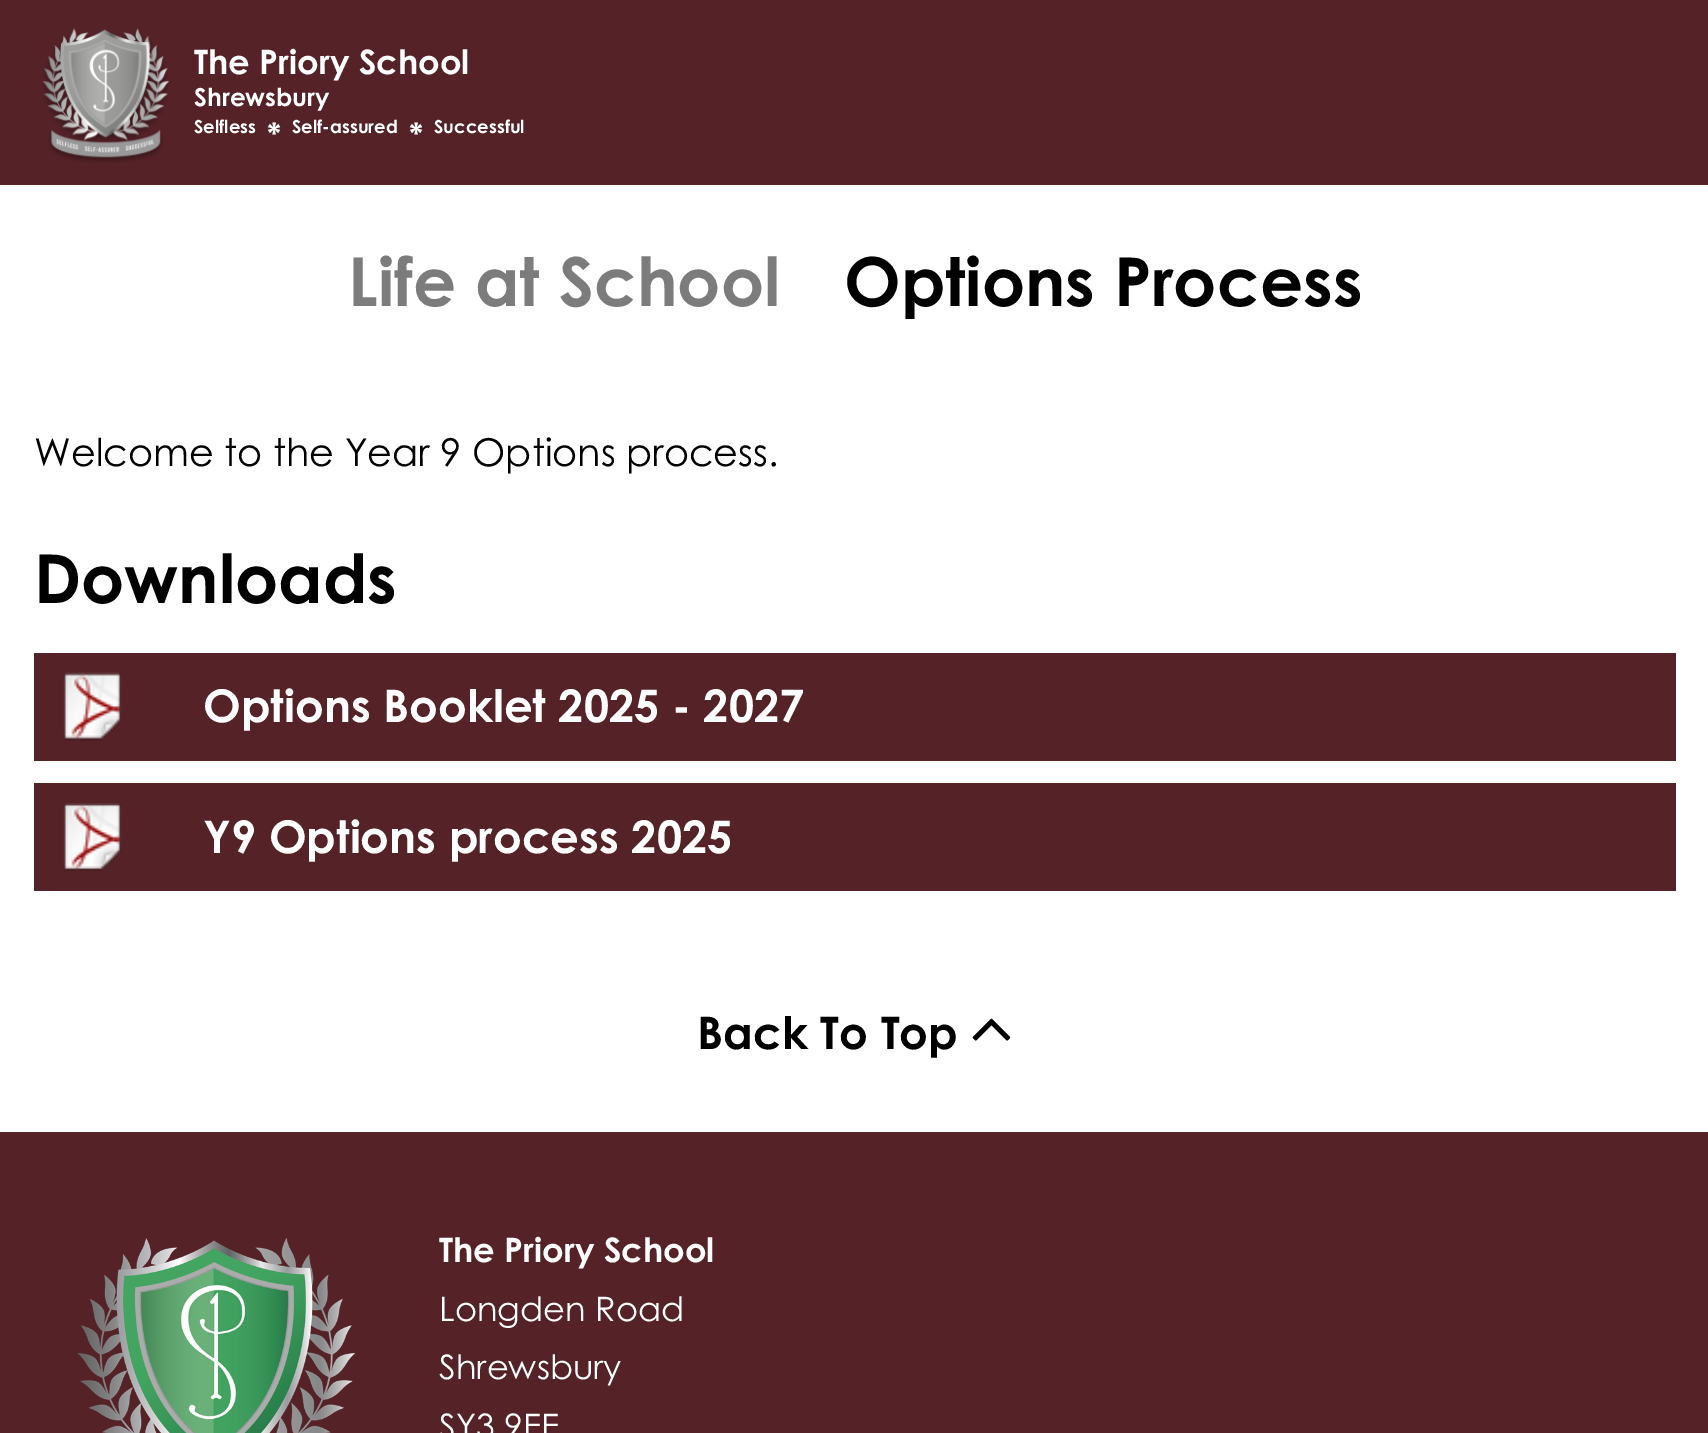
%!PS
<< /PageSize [1708 1433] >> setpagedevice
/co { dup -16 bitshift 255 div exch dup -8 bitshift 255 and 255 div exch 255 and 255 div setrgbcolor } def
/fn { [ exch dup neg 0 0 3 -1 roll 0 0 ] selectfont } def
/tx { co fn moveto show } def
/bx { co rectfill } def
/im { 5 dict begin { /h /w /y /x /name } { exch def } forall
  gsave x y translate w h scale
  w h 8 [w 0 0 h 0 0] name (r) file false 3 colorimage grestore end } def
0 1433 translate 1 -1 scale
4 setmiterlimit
0 0 1708 1433 16#FFFFFF bx
0 0 1708 185 16#552228 bx
(media/1.raw) 42 28 127 135 im
34 653 1642 108 16#552228 bx
(media/2.raw) 63 672 59 69 im
34 783 1642 108 16#552228 bx
(media/3.raw) 63 803 59 68 im
(media/4.raw) 972 1018 39 23 im
0 1132 1708 301 16#552228 bx
(media/5.raw) 77 1238 278 195 im
(The Priory School) 194 74 /CenturyGothic-Bold 33.75 16#FFFFFF tx
(Shrewsbury) 194 106 /CenturyGothic-Bold 24.75 16#FFFFFF tx
(Selfless) 194 133 /CenturyGothic-Bold 18 16#FFFFFF tx
(*) 267 146 /CenturyGothic-Bold 32 16#FFFFFF tx
(Self-assured) 292 133 /CenturyGothic-Bold 18 16#FFFFFF tx
(*) 409 146 /CenturyGothic-Bold 32 16#FFFFFF tx
(Successful) 434 133 /CenturyGothic-Bold 18 16#FFFFFF tx
(Life at School) 348 306 /CenturyGothic-Bold 67.5 16#7C7C7C tx
(Options Process) 844 306 /CenturyGothic-Bold 67.5 16#000000 tx
(Welcome to the Year 9 Options process.) 34 466 /CenturyGothic-Regular 38.25 16#000000 tx
(Downloads) 34 603 /CenturyGothic-Bold 67.5 16#000000 tx
(Options Booklet 2025 - 2027) 203 722 /CenturyGothic-Bold 45 16#FFFFFF tx
(Y9 Options process 2025) 203 853 /CenturyGothic-Bold 45 16#FFFFFF tx
(Back To Top) 697 1049 /CenturyGothic-Bold 45 16#000000 tx
(The Priory School) 439 1262 /CenturyGothic-Bold 33.75 16#FFFFFF tx
(Longden Road) 439 1321 /CenturyGothic-Regular 33.75 16#FFFFFF tx
(Shrewsbury) 439 1379 /CenturyGothic-Regular 33.75 16#FFFFFF tx
(SY3 9EE) 439 1438 /CenturyGothic-Regular 33.75 16#FFFFFF tx
showpage
